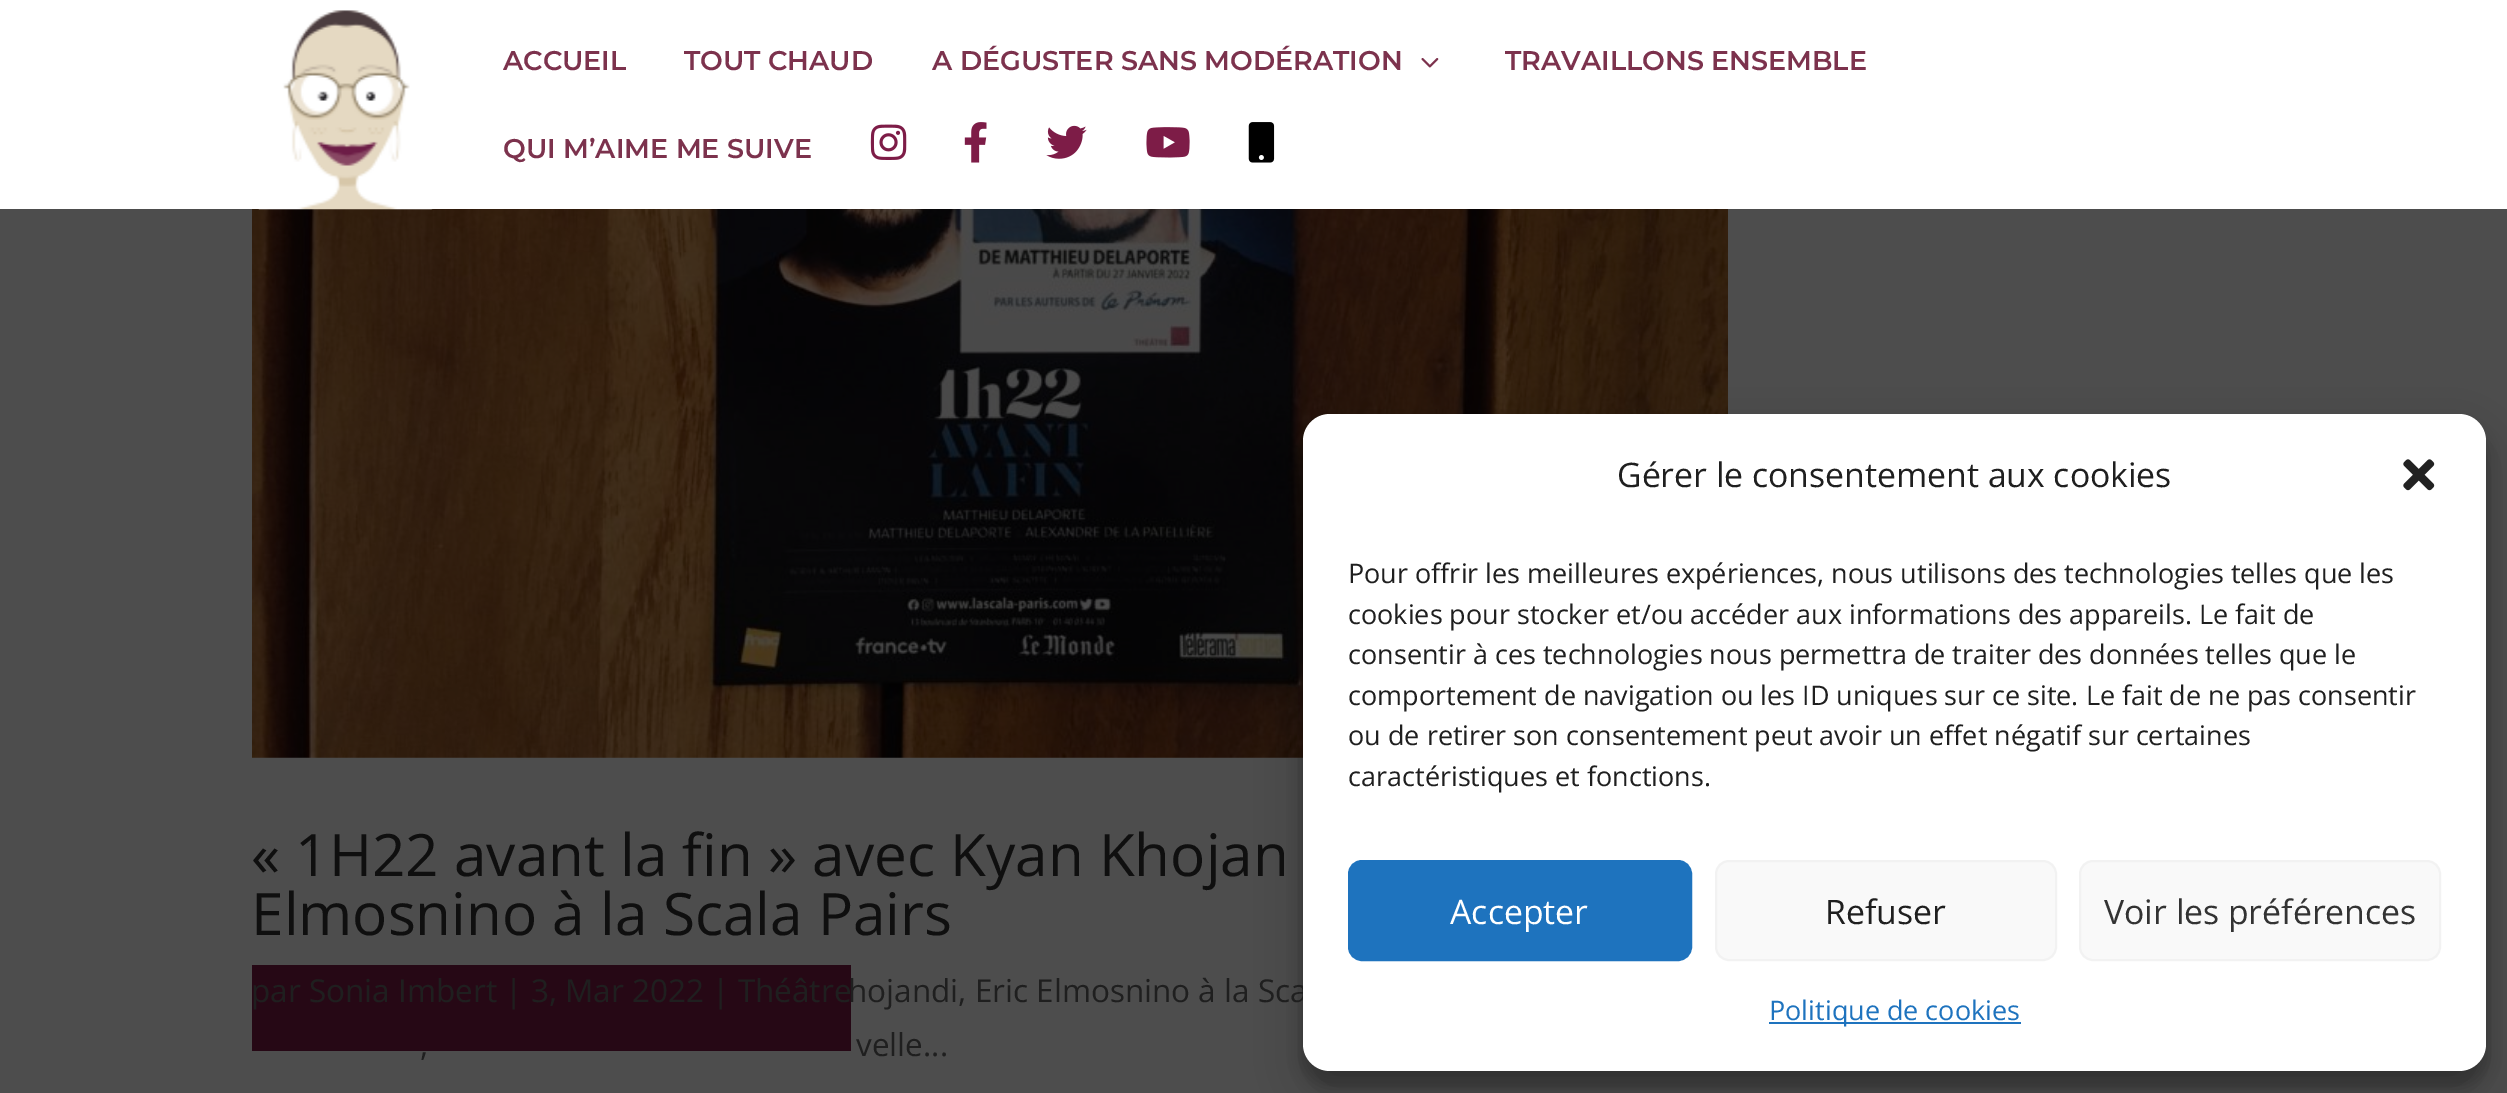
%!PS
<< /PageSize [2507 1093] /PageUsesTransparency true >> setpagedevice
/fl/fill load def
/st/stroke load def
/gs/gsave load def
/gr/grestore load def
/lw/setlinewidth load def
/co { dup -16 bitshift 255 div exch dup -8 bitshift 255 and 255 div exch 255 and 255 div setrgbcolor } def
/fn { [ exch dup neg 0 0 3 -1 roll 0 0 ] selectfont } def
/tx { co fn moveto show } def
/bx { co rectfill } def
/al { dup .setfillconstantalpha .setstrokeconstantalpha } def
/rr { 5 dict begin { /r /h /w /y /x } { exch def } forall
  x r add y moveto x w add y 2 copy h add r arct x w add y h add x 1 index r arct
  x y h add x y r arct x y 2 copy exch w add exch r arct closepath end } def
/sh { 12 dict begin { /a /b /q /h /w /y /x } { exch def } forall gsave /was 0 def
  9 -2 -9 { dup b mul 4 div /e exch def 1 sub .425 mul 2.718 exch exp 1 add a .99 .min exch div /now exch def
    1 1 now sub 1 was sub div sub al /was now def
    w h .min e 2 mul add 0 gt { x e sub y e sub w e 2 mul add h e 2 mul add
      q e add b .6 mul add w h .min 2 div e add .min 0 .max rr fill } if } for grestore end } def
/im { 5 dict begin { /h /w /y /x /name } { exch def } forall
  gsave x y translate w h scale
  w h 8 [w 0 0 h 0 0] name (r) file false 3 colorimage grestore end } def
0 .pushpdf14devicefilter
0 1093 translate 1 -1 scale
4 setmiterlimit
0 0 2507 1093 16#4D4D4D bx
0 0 2507 209 16#FFFFFF bx
(media/8.raw) 252 209 1476 549 im
(media/1.raw) 258 10 175 200 im
(media/2.raw) 1421 58 18 10 im
(media/3.raw) 870 124 37 36 im
(media/4.raw) 964 122 23 41 im
(media/5.raw) 1046 125 41 34 im
(media/6.raw) 1146 127 44 31 im
(media/7.raw) 1248 122 27 41 im
252 965 599 86 16#260815 bx
16#000000 co
1303 428 1183 657 27 7 .23 sh
1303 437 1183 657 27 22.5 .19 sh
(ACCUEIL) 503 70 /Montserrat-Thin 27 16#7C324D tx
(TOUT CHAUD) 684 70 /Montserrat-Thin 27 16#7C324D tx
(A DÉGUSTER SANS MODÉRATION) 932 70 /Montserrat-Thin 27 16#7C324D tx
(TRAVAILLONS ENSEMBLE) 1505 70 /Montserrat-Thin 27 16#7C324D tx
(QUI M’AIME ME SUIVE) 503 158 /Montserrat-Thin 27 16#7C324D tx
(« 1H22 avant la fin » avec Kyan Khojan) 251 876 /OpenSans-Regular 58.5 16#0F0F0F tx
(Elmosnino à la Scala Pairs) 251 935 /OpenSans-Regular 58.5 16#0F0F0F tx
(par Sonia Imbert | 3, Mar 2022 | Théâtre) 251 1002 /OpenSans-Regular 31.5 16#1F1F1F tx
(hojandi, Eric Elmosnino à la Sca) 848 1002 /OpenSans-Regular 31.5 16#1F1F1F tx
(,) 420 1056 /OpenSans-Regular 31.5 16#1F1F1F tx
(velle...) 856 1056 /OpenSans-Regular 31.5 16#1F1F1F tx
16#FFFFFF co
1303 414 1183 657 27 rr fl
(Gérer le consentement aux cookies) 1617 487 /OpenSans-Regular 33.75 16#1F1F1F tx
(media/9.raw) 2403 459 32 32 im
(Pour offrir les meilleures expériences, nous utilisons des technologies telles que les) 1348 583 /OpenSans-Regular 27 16#1F1F1F tx
(cookies pour stocker et/ou accéder aux informations des appareils. Le fait de) 1348 624 /OpenSans-Regular 27 16#1F1F1F tx
(consentir à ces technologies nous permettra de traiter des données telles que le) 1348 664 /OpenSans-Regular 27 16#1F1F1F tx
(comportement de navigation ou les ID uniques sur ce site. Le fait de ne pas consentir) 1348 705 /OpenSans-Regular 27 16#1F1F1F tx
(ou de retirer son consentement peut avoir un effet négatif sur certaines) 1348 745 /OpenSans-Regular 27 16#1F1F1F tx
(caractéristiques et fonctions.) 1348 786 /OpenSans-Regular 27 16#1F1F1F tx
16#1E73BE co
1349 861 342 99 13 rr gs fl gr
2 lw
st
(Accepter) 1450 924 /OpenSans-Regular 33.75 16#FFFFFF tx
16#F9F9F9 co
1716 861 340 99 13 rr gs fl gr
16#F2F2F2 co
st
(Refuser) 1825 924 /OpenSans-Regular 33.75 16#1F1F1F tx
16#F9F9F9 co
2080 861 360 99 13 rr gs fl gr
16#F2F2F2 co
st
(Voir les préférences) 2104 924 /OpenSans-Regular 33.75 16#333333 tx
1769 1022 252 2 16#1E73BE bx
(Politique de cookies) 1769 1020 /OpenSans-Regular 27 16#1E73BE tx
.poppdf14devicefilter showpage
